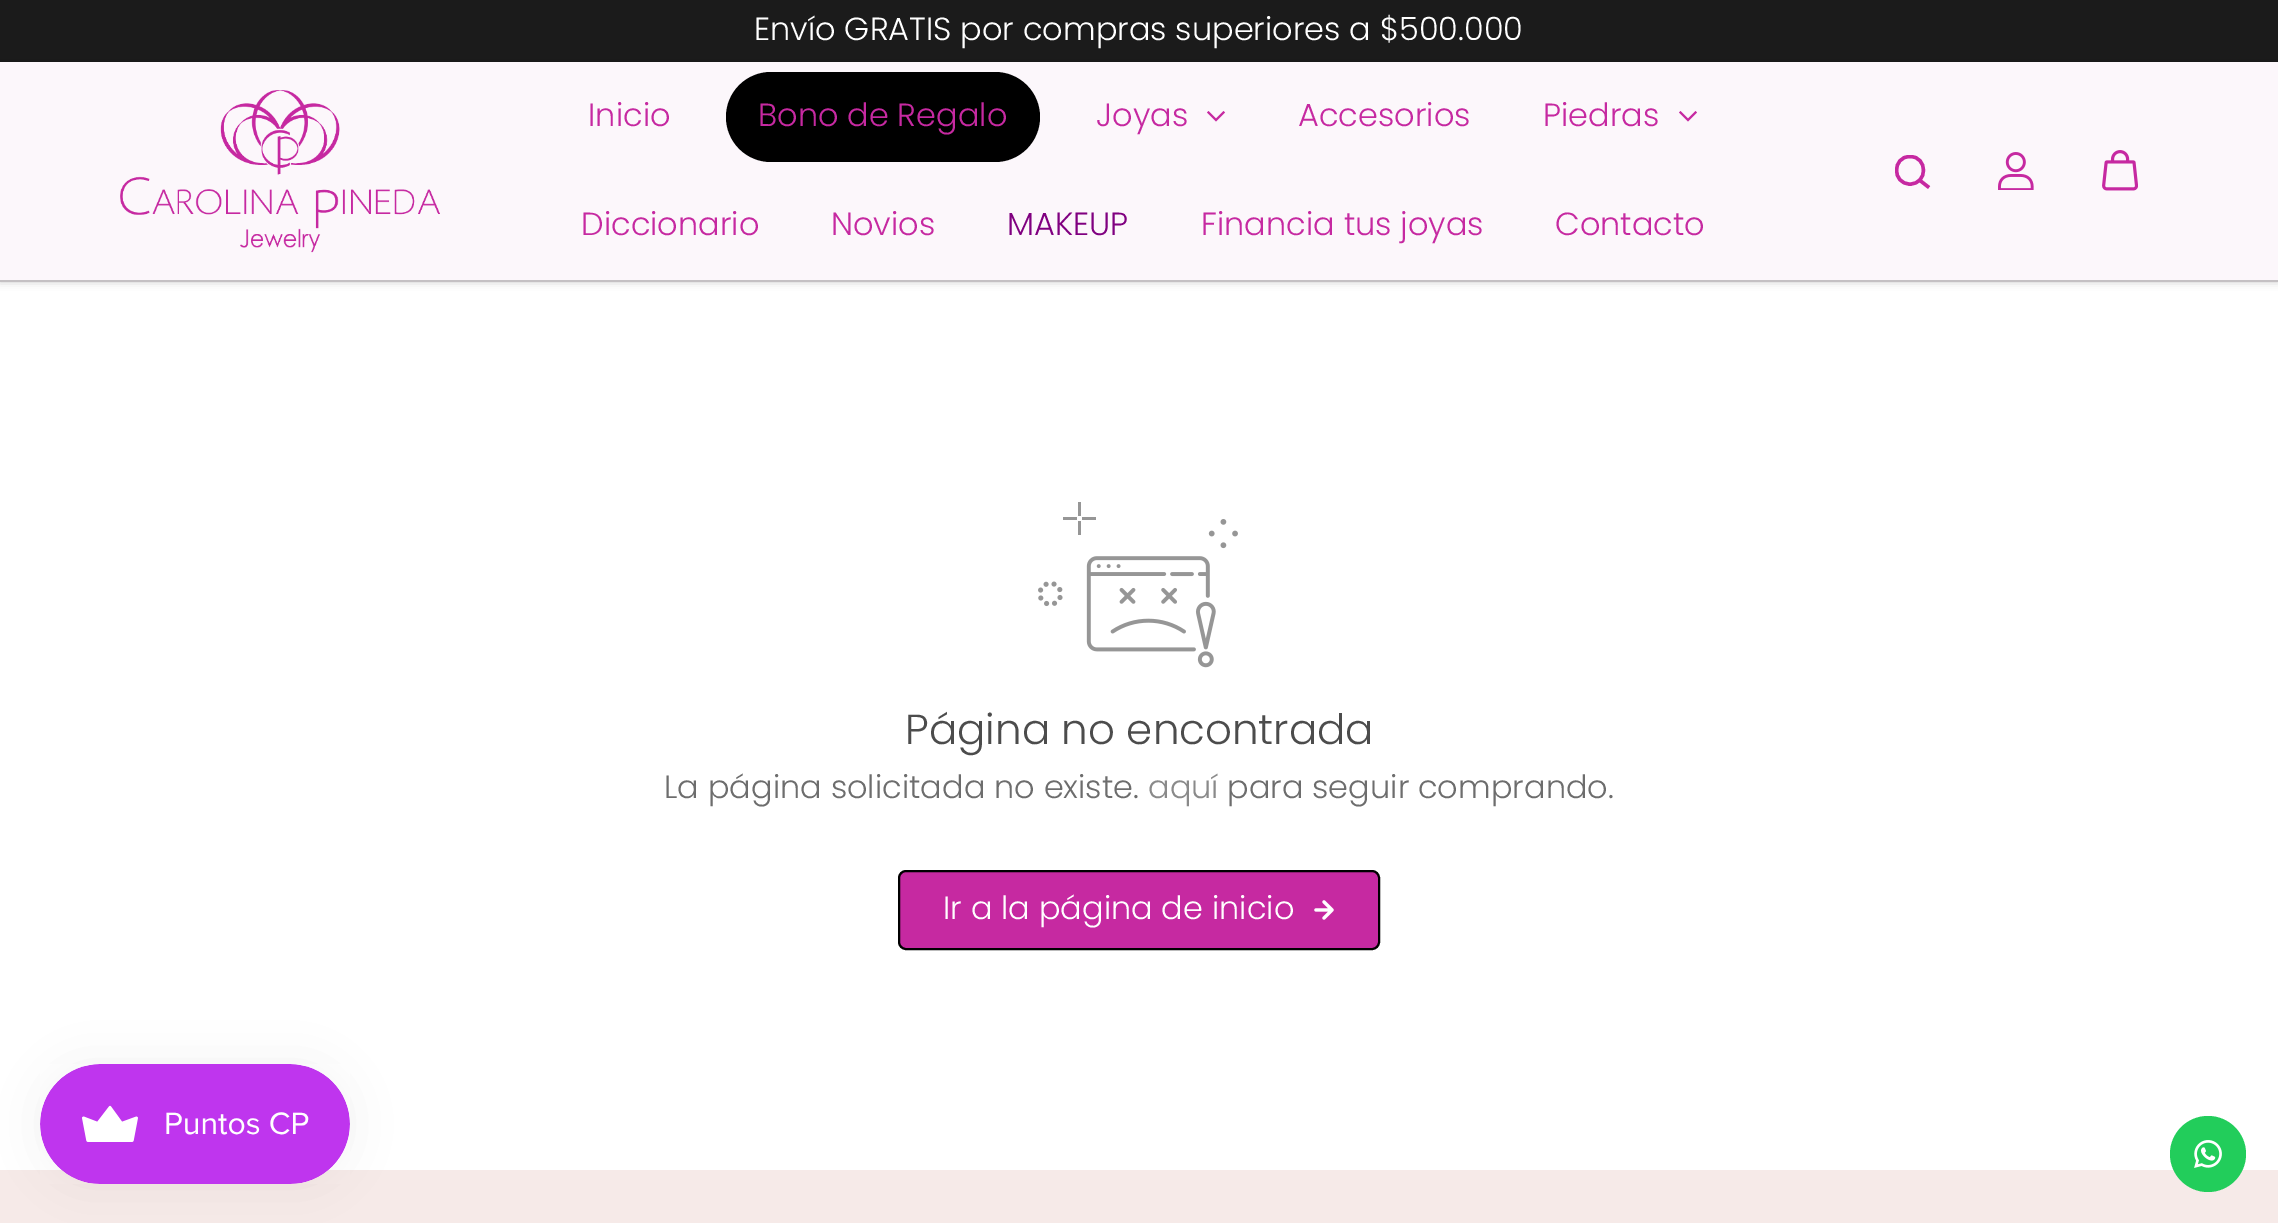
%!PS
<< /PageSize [2278 1223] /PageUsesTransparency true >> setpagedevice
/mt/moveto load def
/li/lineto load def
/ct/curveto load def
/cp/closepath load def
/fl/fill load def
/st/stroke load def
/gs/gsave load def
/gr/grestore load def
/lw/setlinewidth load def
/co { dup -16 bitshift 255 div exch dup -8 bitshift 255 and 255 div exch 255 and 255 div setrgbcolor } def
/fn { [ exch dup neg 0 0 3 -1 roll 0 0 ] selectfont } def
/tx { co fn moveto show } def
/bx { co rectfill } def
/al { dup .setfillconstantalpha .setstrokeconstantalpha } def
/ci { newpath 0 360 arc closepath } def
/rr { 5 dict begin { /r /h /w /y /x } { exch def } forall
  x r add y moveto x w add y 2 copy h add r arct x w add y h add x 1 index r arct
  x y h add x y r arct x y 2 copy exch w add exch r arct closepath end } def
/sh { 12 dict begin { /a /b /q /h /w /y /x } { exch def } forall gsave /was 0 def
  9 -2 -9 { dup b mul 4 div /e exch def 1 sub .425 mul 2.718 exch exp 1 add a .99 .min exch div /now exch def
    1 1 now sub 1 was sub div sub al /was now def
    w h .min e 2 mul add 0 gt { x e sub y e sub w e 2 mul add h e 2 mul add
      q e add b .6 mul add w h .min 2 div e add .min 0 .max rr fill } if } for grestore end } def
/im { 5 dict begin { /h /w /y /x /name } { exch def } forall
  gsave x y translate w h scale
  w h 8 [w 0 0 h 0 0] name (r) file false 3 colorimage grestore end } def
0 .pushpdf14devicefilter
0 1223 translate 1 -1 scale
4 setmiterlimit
0 0 2278 1223 16#FFFFFF bx
0 0 2278 62 16#1B1B1B bx
16#000000 co
0 62 2278 220 0 4 .21 sh
0 62 2278 218 16#FCF7FB bx
0 280 2278 2 16#C4C0C3 bx
(media/1.raw) 120 90 320 163 im
16#000000 co
726 72 314 90 45 rr fl
16#C629A1 co
1223.5 111 mt 1216 118.5 li 1208.5 111 li 1207 112.5 li 1216 121.5 li 1225 112.5 li cp fl
1695.5 111 mt 1688 118.5 li 1680.5 111 li 1679 112.5 li 1688 121.5 li 1697 112.5 li cp fl
gs
1895 155 35 34 rectclip
3.4 lw
1910 184 mt 1928 184 1928 156.5 1910 156.5 ct 1892 156.5 1892 184 1910 184 ct cp st
gr
3.4 lw
1920 180.5 mt 1929 187.5 li st
(media/2.raw) 1998 152 36 38 im
(media/3.raw) 2102 150 36 41 im
(media/4.raw) 1038 502 200 166 im
899 871 480 78 7 rr gs fl gr
16#000000 co
2 lw
st
(media/5.raw) 1314 900 20 20 im
0 1170 2278 53 16#F6EAE8 bx
16#000000 co
40 1064 310 120 60 25 .05 sh
(media/6.raw) 40 1064 310 120 im
16#22CD5B co
2208 1154 38 ci fl
(media/7.raw) 2194 1140 28 28 im
(Envío GRATIS por compras superiores a $500.000) 754 40 /Poppins-Light 32 16#FFFFFF tx
(Inicio) 588 126 /Poppins-Light 32 16#C629A1 tx
(Bono de Regalo) 758 126 /Poppins-Light 32 16#C629A1 tx
(Joyas) 1096 126 /Poppins-Light 32 16#C629A1 tx
(Accesorios) 1298 126 /Poppins-Light 32 16#C629A1 tx
(Piedras) 1543 126 /Poppins-Light 32 16#C629A1 tx
(Diccionario) 581 235 /Poppins-Light 32 16#C629A1 tx
(Novios) 831 235 /Poppins-Light 32 16#C629A1 tx
(MAKEUP) 1007 235 /Poppins-Light 32 16#800080 tx
(Financia tus joyas) 1201 235 /Poppins-Light 32 16#C629A1 tx
(Contacto) 1555 235 /Poppins-Light 32 16#C629A1 tx
(Página no encontrada) 905 744 /Poppins-Light 42 16#4C4C4C tx
(La página solicitada no existe.) 664 798 /Poppins-Light 32 16#6D6D6D tx
(aquí) 1148 798 /Poppins-Light 32 16#8A8A8A tx
(para seguir comprando.) 1227 798 /Poppins-Light 32 16#6D6D6D tx
(Ir a la página de inicio) 943 919 /Poppins-Light 32 16#FFFFFF tx
.poppdf14devicefilter showpage
